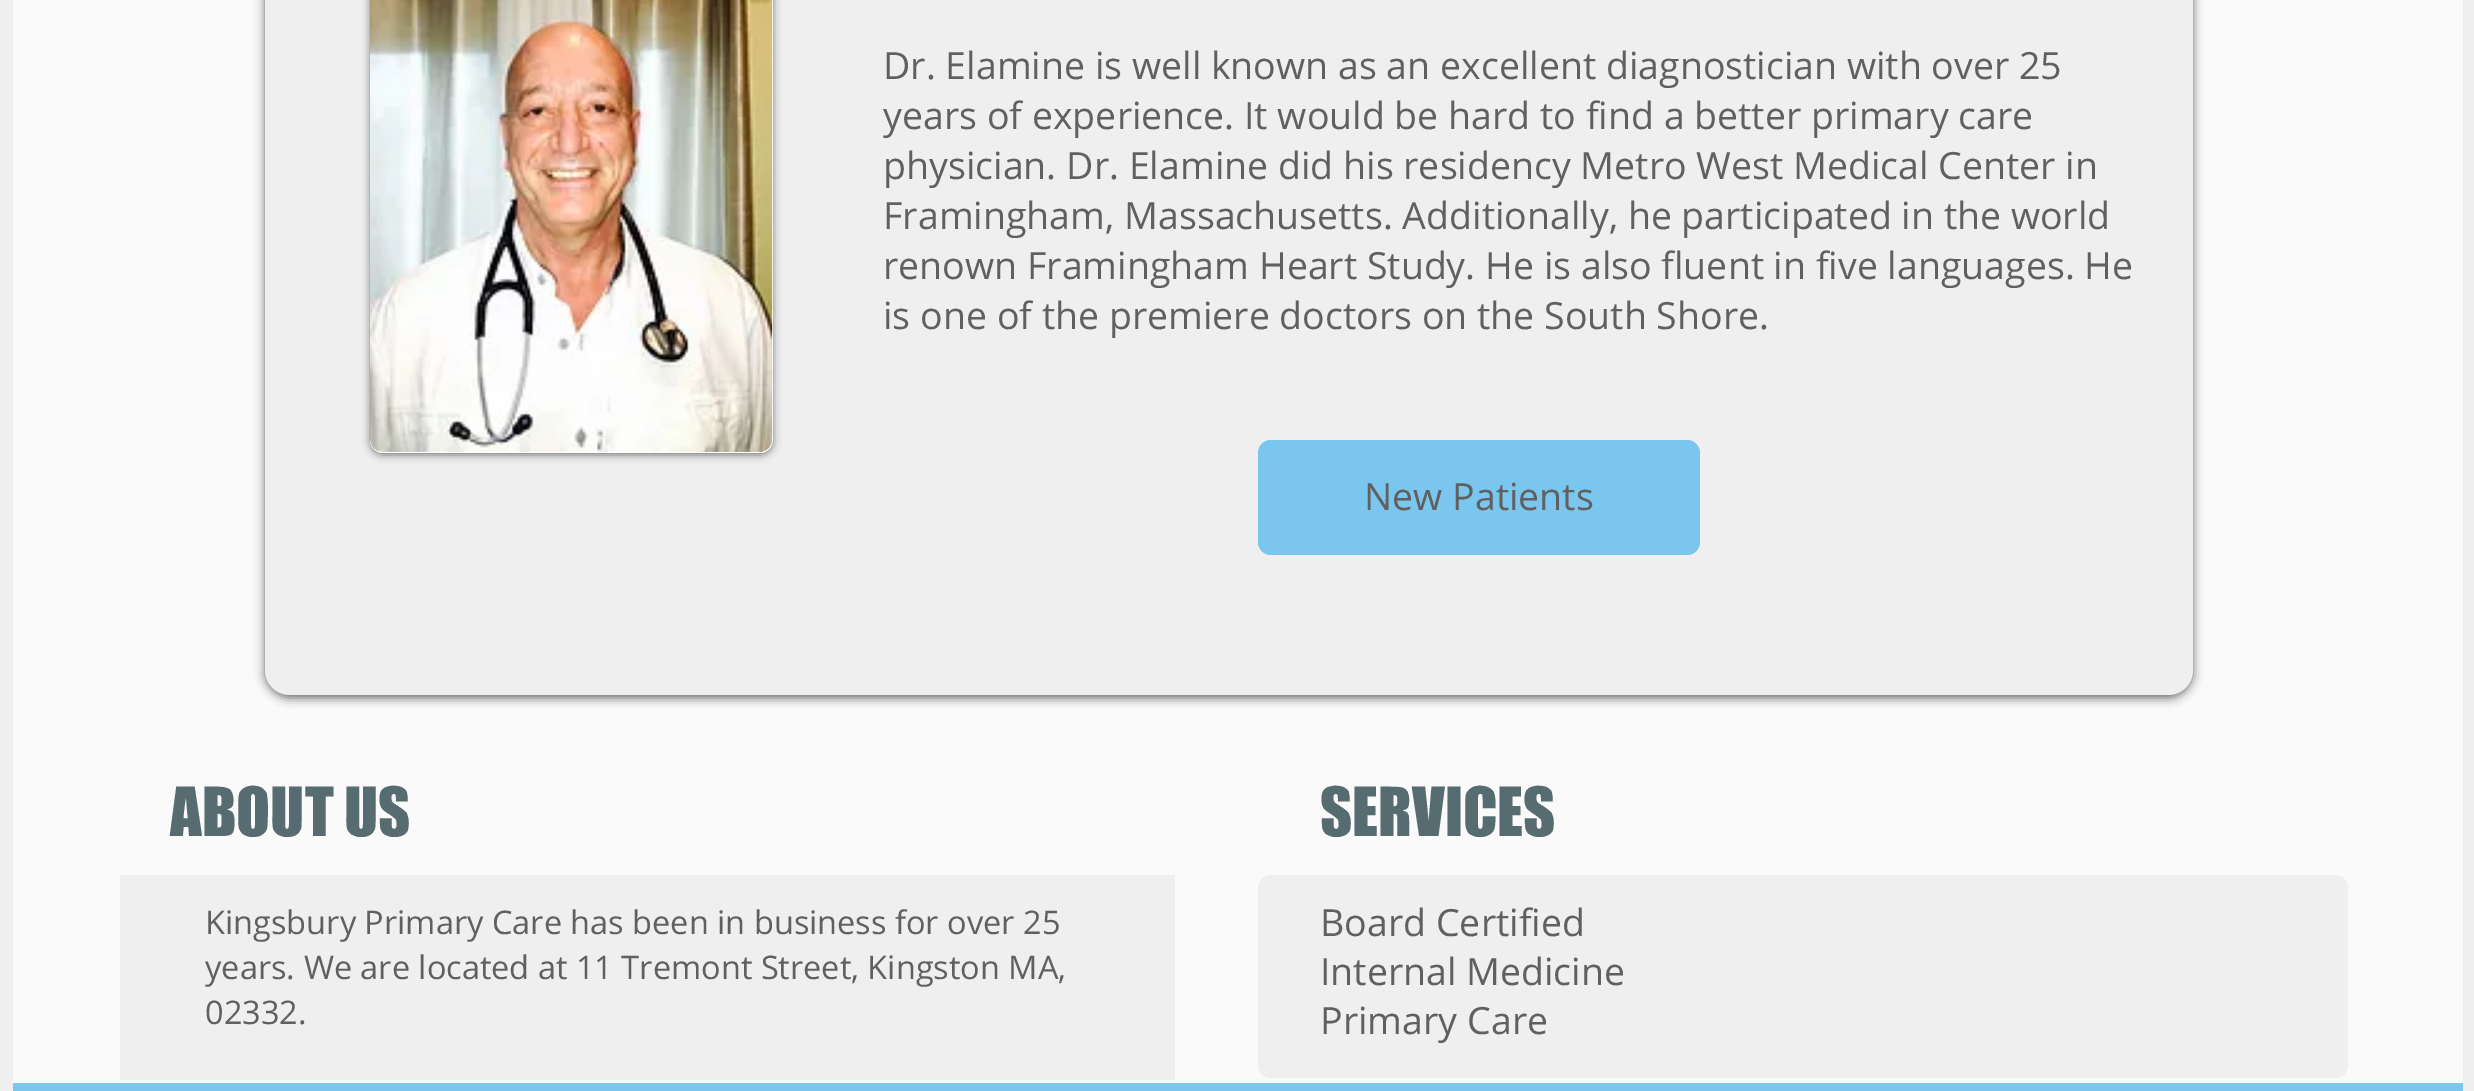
%!PS
<< /PageSize [2474 1091] /PageUsesTransparency true >> setpagedevice
/fl/fill load def
/co { dup -16 bitshift 255 div exch dup -8 bitshift 255 and 255 div exch 255 and 255 div setrgbcolor } def
/fn { [ exch dup neg 0 0 3 -1 roll 0 0 ] selectfont } def
/tx { co fn moveto show } def
/bx { co rectfill } def
/al { dup .setfillconstantalpha .setstrokeconstantalpha } def
/rr { 5 dict begin { /r /h /w /y /x } { exch def } forall
  x r add y moveto x w add y 2 copy h add r arct x w add y h add x 1 index r arct
  x y h add x y r arct x y 2 copy exch w add exch r arct closepath end } def
/sh { 12 dict begin { /a /b /q /h /w /y /x } { exch def } forall gsave /was 0 def
  9 -2 -9 { dup b mul 4 div /e exch def 1 sub .425 mul 2.718 exch exp 1 add a .99 .min exch div /now exch def
    1 1 now sub 1 was sub div sub al /was now def
    w h .min e 2 mul add 0 gt { x e sub y e sub w e 2 mul add h e 2 mul add
      q e add b .6 mul add w h .min 2 div e add .min 0 .max rr fill } if } for grestore end } def
/im { 5 dict begin { /h /w /y /x /name } { exch def } forall
  gsave x y translate w h scale
  w h 8 [w 0 0 h 0 0] name (r) file false 3 colorimage grestore end } def
0 .pushpdf14devicefilter
0 1091 translate 1 -1 scale
4 setmiterlimit
0 0 2474 1091 16#EFEFEF bx
13 0 2450 1083 16#FAFAFA bx
16#000000 co
265 -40 1928 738 25 5 .6 sh
16#EFEFEF co
265 -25 1928 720 25 rr fl
16#000000 co
370 -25 403 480 13 4 .5 sh
16#FFFFFF co
370 -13 403 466 13 rr fl
(media/1.raw) 370 0 403 452 im
16#7AC6EE co
1258 440 442 115 13 rr fl
120 875 1055 205 16#EFEFEF bx
1258 875 1090 203 13 rr fl
13 1083 2450 8 16#7AC6EE bx
(Dr. Elamine is well known as an excellent diagnostician with over 25) 883 79 /OpenSans-Regular 37.5 16#606060 tx
(years of experience. It would be hard to find a better primary care) 883 129 /OpenSans-Regular 37.5 16#606060 tx
(physician. Dr. Elamine did his residency Metro West Medical Center in) 883 179 /OpenSans-Regular 37.5 16#606060 tx
(Framingham, Massachusetts. Additionally, he participated in the world) 883 229 /OpenSans-Regular 37.5 16#606060 tx
(renown Framingham Heart Study. He is also fluent in five languages. He) 883 279 /OpenSans-Regular 37.5 16#606060 tx
(is one of the premiere doctors on the South Shore.) 883 329 /OpenSans-Regular 37.5 16#606060 tx
(New Patients) 1364 510 /OpenSans-Regular 37.5 16#606060 tx
(ABOUT US) 170 836 /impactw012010-Regular 62.5 16#566C71 tx
(SERVICES) 1320 836 /impactw012010-Regular 62.5 16#566C71 tx
(Kingsbury Primary Care has been in business for over 25) 205 934 /OpenSans-Regular 32.5 16#606060 tx
(years. We are located at 11 Tremont Street, Kingston MA,) 205 979 /OpenSans-Regular 32.5 16#606060 tx
(02332.) 205 1024 /OpenSans-Regular 32.5 16#606060 tx
(Board Certified) 1320 936 /OpenSans-Regular 37.5 16#606060 tx
(Internal Medicine) 1320 985 /OpenSans-Regular 37.5 16#606060 tx
(Primary Care) 1320 1034 /OpenSans-Regular 37.5 16#606060 tx
.poppdf14devicefilter showpage
